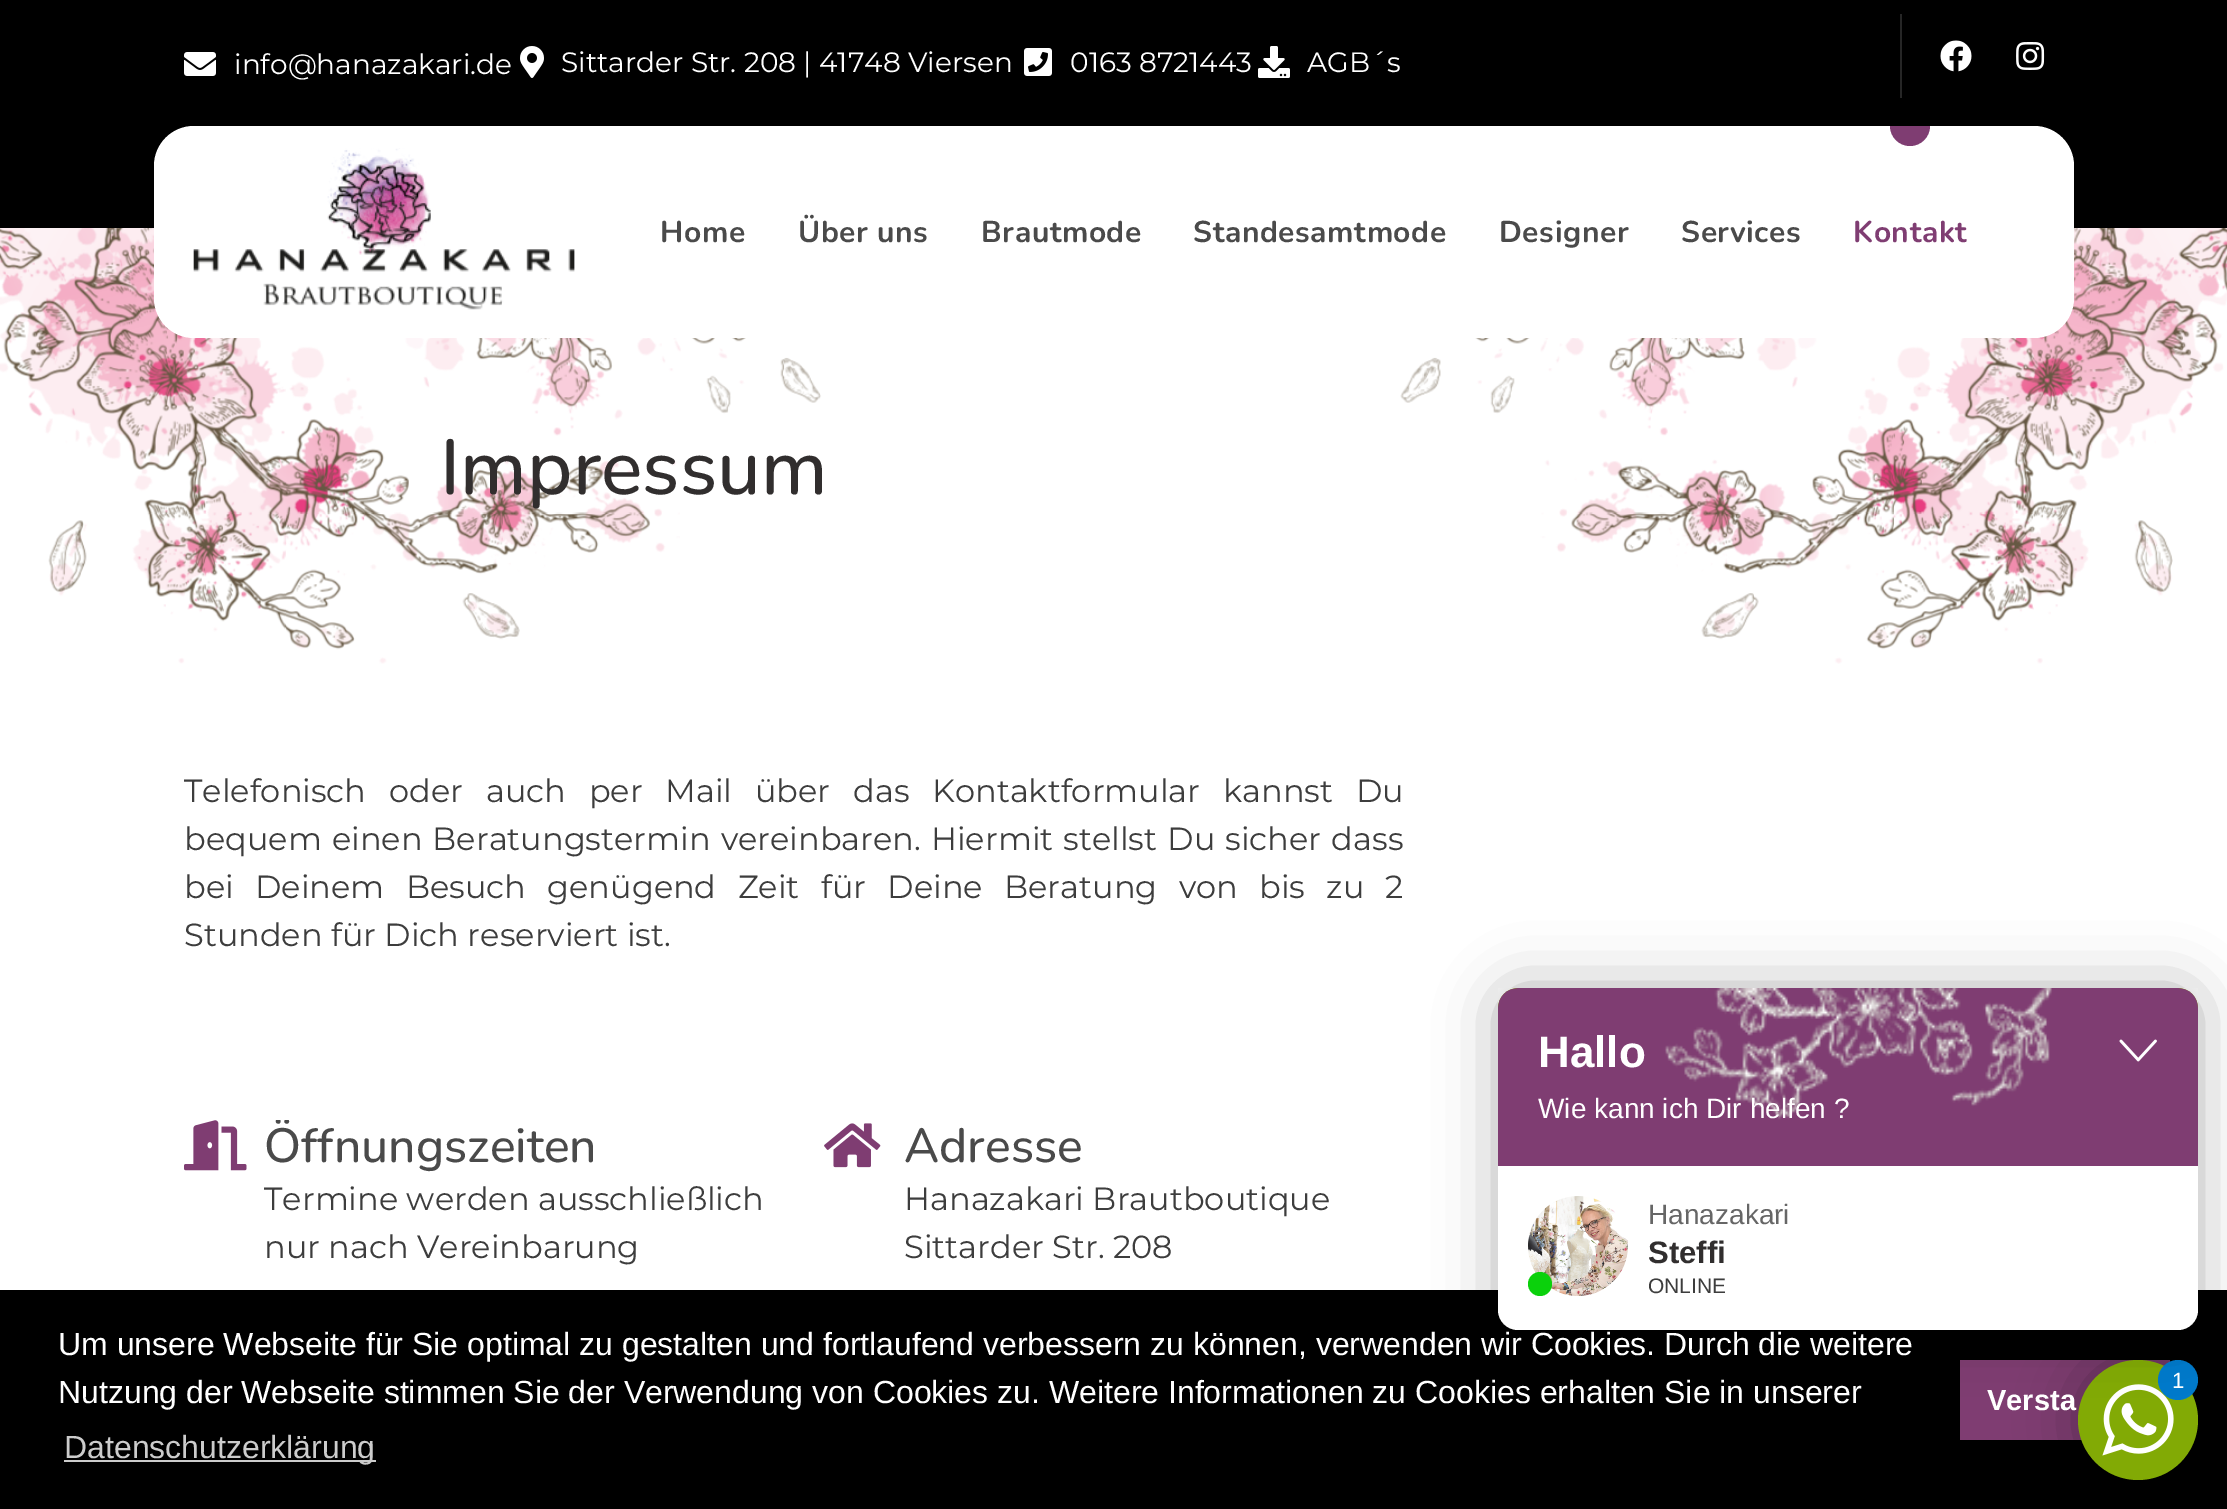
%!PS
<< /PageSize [2227 1509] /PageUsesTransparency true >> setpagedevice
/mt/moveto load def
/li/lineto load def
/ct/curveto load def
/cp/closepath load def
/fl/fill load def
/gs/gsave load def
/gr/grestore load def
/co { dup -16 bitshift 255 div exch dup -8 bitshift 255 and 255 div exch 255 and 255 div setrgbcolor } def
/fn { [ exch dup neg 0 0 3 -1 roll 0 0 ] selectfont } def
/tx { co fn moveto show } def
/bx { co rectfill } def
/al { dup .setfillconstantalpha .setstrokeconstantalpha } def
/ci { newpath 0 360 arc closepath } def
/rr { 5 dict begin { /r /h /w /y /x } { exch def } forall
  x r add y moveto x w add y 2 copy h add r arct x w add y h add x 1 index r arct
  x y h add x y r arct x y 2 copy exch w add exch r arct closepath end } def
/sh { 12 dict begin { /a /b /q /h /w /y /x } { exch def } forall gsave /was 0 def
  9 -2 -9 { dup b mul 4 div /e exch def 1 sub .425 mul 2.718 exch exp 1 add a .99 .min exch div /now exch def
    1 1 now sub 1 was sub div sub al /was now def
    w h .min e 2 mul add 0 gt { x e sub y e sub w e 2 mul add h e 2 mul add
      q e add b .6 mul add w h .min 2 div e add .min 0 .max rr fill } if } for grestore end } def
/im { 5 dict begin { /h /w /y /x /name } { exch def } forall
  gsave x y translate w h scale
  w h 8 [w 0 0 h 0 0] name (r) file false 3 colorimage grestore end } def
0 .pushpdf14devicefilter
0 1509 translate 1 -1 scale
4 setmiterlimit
0 0 2227 1509 16#FFFFFF bx
0 0 2227 228 16#000000 bx
(media/1.raw) 184 52 32 24 im
(media/2.raw) 520 46 24 32 im
(media/3.raw) 1024 48 28 28 im
(media/4.raw) 1258 46 32 32 im
1900 14 2 84 16#262626 bx
(media/5.raw) 1940 40 32 32 im
(media/6.raw) 2016 42 29 28 im
(media/8.raw) 0 228 2227 436 im
16#FFFFFF co
154 126 1920 212 40 rr fl
(media/7.raw) 193 148 382 162 im
16#7F3D72 co
1890 126 mt 1930 126 li 1930 137 1921 146 1910 146 ct 1899 146 1890 137 1890 126 ct cp fl
(media/9.raw) 184 1120 63 51 im
(media/10.raw) 824 1123 57 45 im
0 1290 2227 219 16#000000 bx
1960 1360 210 80 16#7F3D72 bx
16#000000 co
2078 1360 120 120 60 30 .3 sh
16#82AA05 co
2138 1420 60 ci fl
(media/14.raw) 2102 1384 72 72 im
16#007ACC co
2178 1380 20 ci fl
16#000000 co
1498 988 700 342 20 30 .3 sh
16#FFFFFF co
1498 988 700 342 20 rr fl
16#82AA05 co
1518 988 mt 2178 988 li 2189 988 2198 997 2198 1008 ct 2198 1166 li 1498 1166 li 1498 1008 li 1498 997 1507 988 1518 988 ct cp fl
(media/11.raw) 1498 988 700 178 im
(media/12.raw) 2119 1039 38 23 im
(media/13.raw) 1528 1196 100 100 im
16#0BD10C co
1540 1284 12 ci fl
64 1460 312 2 16#CCCCCC bx
(info@hanazakari.de) 234 74 /Montserrat-Regular 28 16#FFFFFF tx
(Sittarder Str. 208 | 41748 Viersen) 561 72 /Montserrat-Regular 28 16#FFFFFF tx
(0163 8721443) 1070 72 /Montserrat-Regular 28 16#FFFFFF tx
(AGB´s) 1307 72 /Montserrat-Regular 28 16#FFFFFF tx
/Nunito-Bold 30 fn
16#4A4A4A co
660 242 mt .6 0 (Home) ashow
798 242 mt .6 0 (Über uns) ashow
981 242 mt .6 0 (Brautmode) ashow
1193 242 mt .6 0 (Standesamtmode) ashow
1499 242 mt .6 0 (Designer) ashow
1681 242 mt .6 0 (Services) ashow
16#7F3D72 co
1853 242 mt .6 0 (Kontakt) ashow
(Impressum) 440 494 /Nunito-Medium 77.5 16#312E2E tx
/Montserrat-Regular 32 fn
16#3D3D3D co
184 802 mt 14.5 0 32 (Telefonisch oder auch per Mail über das Kontaktformular kannst Du) widthshow
184 850 mt 1.75 0 32 (bequem einen Beratungstermin vereinbaren. Hiermit stellst Du sicher dass) widthshow
184 898 mt 13 0 32 (bei Deinem Besuch genügend Zeit für Deine Beratung von bis zu 2) widthshow
(Stunden für Dich reserviert ist.) 184 946 /Montserrat-Regular 32 16#3D3D3D tx
gs
264 1120 500 248 rectclip
(Öffnungszeiten) 264 1162 /Nunito-Medium 48 16#4A4A4A tx
gr
(Termine werden ausschließlich) 264 1210 /Montserrat-Regular 32 16#3D3D3D tx
(nur nach Vereinbarung) 264 1258 /Montserrat-Regular 32 16#3D3D3D tx
(Adresse) 904 1162 /Nunito-Medium 48 16#4A4A4A tx
(Hanazakari Brautboutique) 904 1210 /Montserrat-Regular 32 16#3D3D3D tx
(Sittarder Str. 208) 904 1258 /Montserrat-Regular 32 16#3D3D3D tx
(Hallo) 1538 1067 /LiberationSans-Bold 44 16#FFFFFF tx
(Wie kann ich Dir helfen ?) 1538 1118 /LiberationSans-Regular 28 16#FFFFFF tx
(Hanazakari) 1648 1224 /LiberationSans-Regular 28 16#666666 tx
(Steffi) 1648 1263 /LiberationSans-Bold 31 16#312E2E tx
(ONLINE) 1648 1293 /LiberationSans-Regular 21 16#3D3D3D tx
(1) 2172 1388 /LiberationSans-Regular 22 16#FFFFFF tx
(Um unsere Webseite für Sie optimal zu gestalten und fortlaufend verbessern zu können, verwenden wir Cookies. Durch die weitere) 58 1355 /LiberationSans-Regular 32 16#FFFFFF tx
(Nutzung der Webseite stimmen Sie der Verwendung von Cookies zu. Weitere Informationen zu Cookies erhalten Sie in unserer) 58 1403 /LiberationSans-Regular 32 16#FFFFFF tx
(Datenschutzerklärung) 64 1458 /LiberationSans-Regular 32 16#CCCCCC tx
(Versta) 1987 1410 /LiberationSans-Bold 29 16#FFFFFF tx
.poppdf14devicefilter showpage
